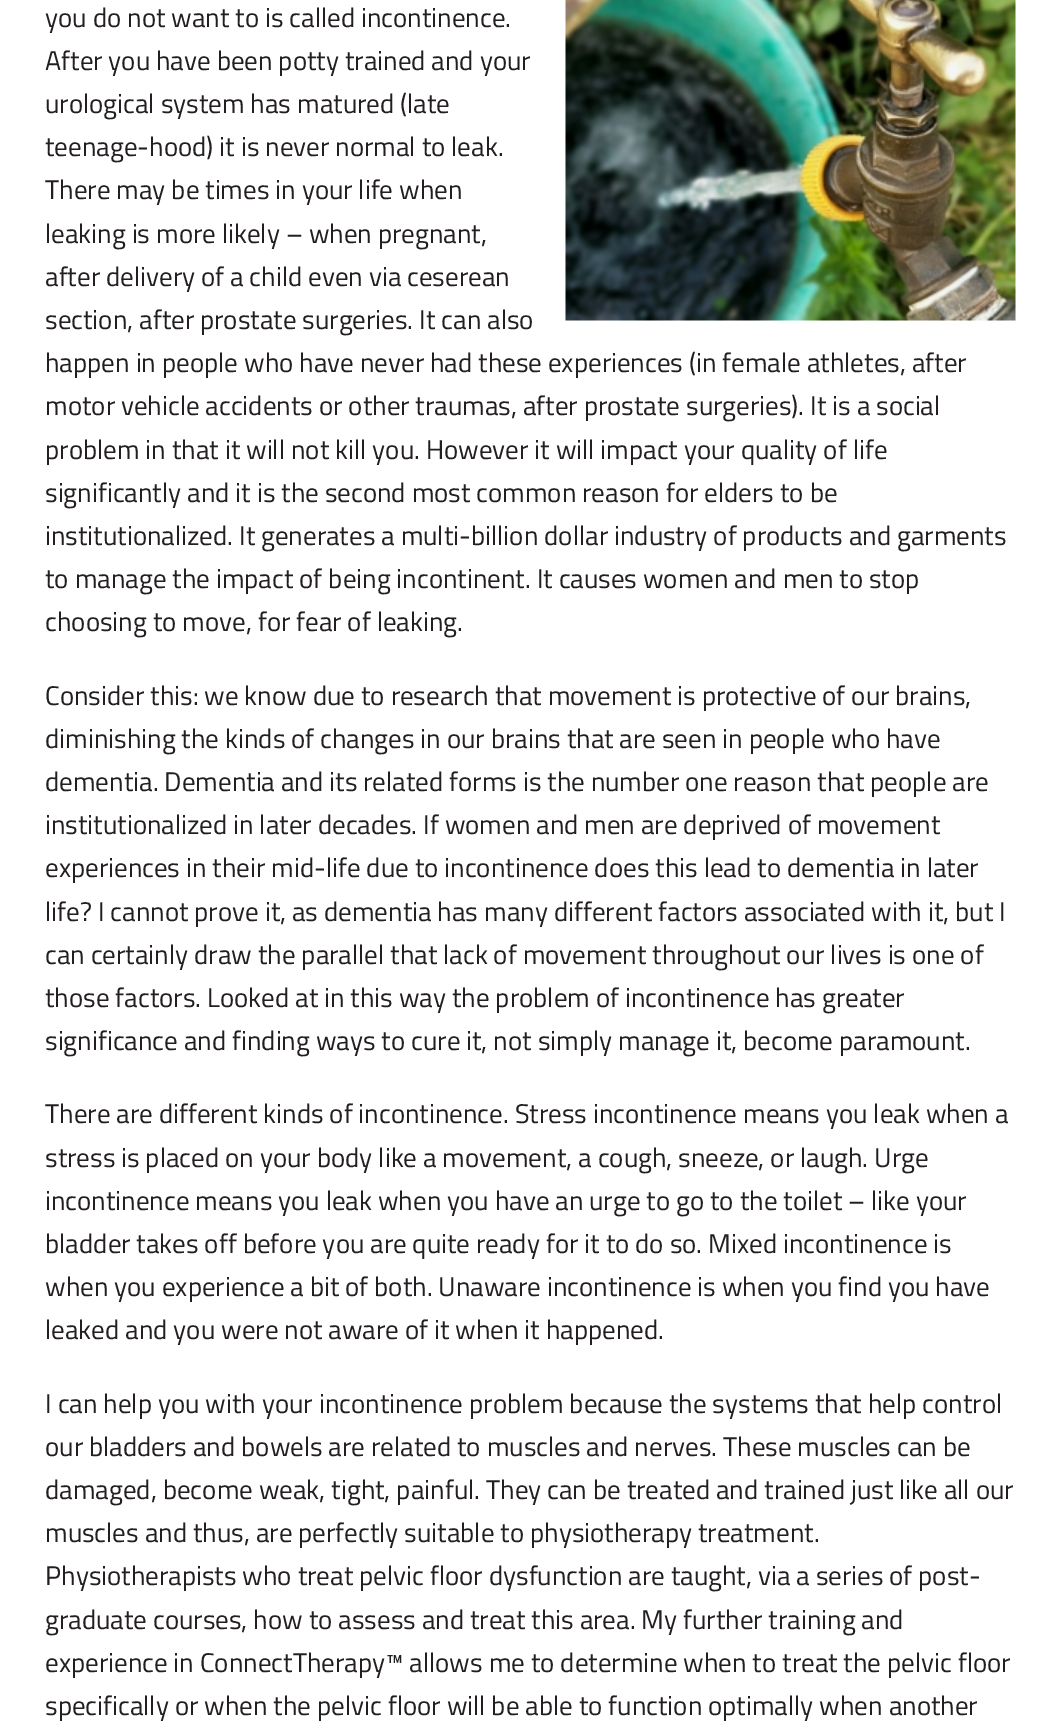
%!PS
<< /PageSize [1060 1721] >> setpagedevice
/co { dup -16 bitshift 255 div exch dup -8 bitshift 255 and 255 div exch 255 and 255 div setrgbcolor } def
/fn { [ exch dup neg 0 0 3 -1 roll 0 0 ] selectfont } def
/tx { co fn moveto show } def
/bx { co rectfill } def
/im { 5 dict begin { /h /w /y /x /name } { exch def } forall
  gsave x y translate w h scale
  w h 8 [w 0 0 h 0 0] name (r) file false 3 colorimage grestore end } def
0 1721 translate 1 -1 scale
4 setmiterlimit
0 0 1060 1721 16#FFFFFF bx
(media/1.raw) 565 0 451 321 im
(you do not want to is called incontinence.) 45 27 /TitilliumWeb-Regular 27 16#231F20 tx
(After you have been potty trained and your) 45 70 /TitilliumWeb-Regular 27 16#231F20 tx
(urological system has matured \(late) 45 113 /TitilliumWeb-Regular 27 16#231F20 tx
(teenage-hood\) it is never normal to leak.) 45 156 /TitilliumWeb-Regular 27 16#231F20 tx
(There may be times in your life when) 45 199 /TitilliumWeb-Regular 27 16#231F20 tx
(leaking is more likely – when pregnant,) 45 243 /TitilliumWeb-Regular 27 16#231F20 tx
(after delivery of a child even via ceserean) 45 286 /TitilliumWeb-Regular 27 16#231F20 tx
(section, after prostate surgeries. It can also) 45 329 /TitilliumWeb-Regular 27 16#231F20 tx
(happen in people who have never had these experiences \(in female athletes, after) 45 372 /TitilliumWeb-Regular 27 16#231F20 tx
(motor vehicle accidents or other traumas, after prostate surgeries\). It is a social) 45 415 /TitilliumWeb-Regular 27 16#231F20 tx
(problem in that it will not kill you. However it will impact your quality of life) 45 459 /TitilliumWeb-Regular 27 16#231F20 tx
(significantly and it is the second most common reason for elders to be) 45 502 /TitilliumWeb-Regular 27 16#231F20 tx
(institutionalized. It generates a multi-billion dollar industry of products and garments) 45 545 /TitilliumWeb-Regular 27 16#231F20 tx
(to manage the impact of being incontinent. It causes women and men to stop) 45 588 /TitilliumWeb-Regular 27 16#231F20 tx
(choosing to move, for fear of leaking.) 45 631 /TitilliumWeb-Regular 27 16#231F20 tx
(Consider this: we know due to research that movement is protective of our brains,) 45 705 /TitilliumWeb-Regular 27 16#231F20 tx
(diminishing the kinds of changes in our brains that are seen in people who have) 45 748 /TitilliumWeb-Regular 27 16#231F20 tx
(dementia. Dementia and its related forms is the number one reason that people are) 45 791 /TitilliumWeb-Regular 27 16#231F20 tx
(institutionalized in later decades. If women and men are deprived of movement) 45 834 /TitilliumWeb-Regular 27 16#231F20 tx
(experiences in their mid-life due to incontinence does this lead to dementia in later) 45 877 /TitilliumWeb-Regular 27 16#231F20 tx
(life? I cannot prove it, as dementia has many different factors associated with it, but I) 45 921 /TitilliumWeb-Regular 27 16#231F20 tx
(can certainly draw the parallel that lack of movement throughout our lives is one of) 45 964 /TitilliumWeb-Regular 27 16#231F20 tx
(those factors. Looked at in this way the problem of incontinence has greater) 45 1007 /TitilliumWeb-Regular 27 16#231F20 tx
(significance and finding ways to cure it, not simply manage it, become paramount.) 45 1050 /TitilliumWeb-Regular 27 16#231F20 tx
(There are different kinds of incontinence. Stress incontinence means you leak when a) 45 1123 /TitilliumWeb-Regular 27 16#231F20 tx
(stress is placed on your body like a movement, a cough, sneeze, or laugh. Urge) 45 1167 /TitilliumWeb-Regular 27 16#231F20 tx
(incontinence means you leak when you have an urge to go to the toilet – like your) 45 1210 /TitilliumWeb-Regular 27 16#231F20 tx
(bladder takes off before you are quite ready for it to do so. Mixed incontinence is) 45 1253 /TitilliumWeb-Regular 27 16#231F20 tx
(when you experience a bit of both. Unaware incontinence is when you find you have) 45 1296 /TitilliumWeb-Regular 27 16#231F20 tx
(leaked and you were not aware of it when it happened.) 45 1339 /TitilliumWeb-Regular 27 16#231F20 tx
(I can help you with your incontinence problem because the systems that help control) 45 1413 /TitilliumWeb-Regular 27 16#231F20 tx
(our bladders and bowels are related to muscles and nerves. These muscles can be) 45 1456 /TitilliumWeb-Regular 27 16#231F20 tx
(damaged, become weak, tight, painful. They can be treated and trained just like all our) 45 1499 /TitilliumWeb-Regular 27 16#231F20 tx
(muscles and thus, are perfectly suitable to physiotherapy treatment.) 45 1542 /TitilliumWeb-Regular 27 16#231F20 tx
(Physiotherapists who treat pelvic floor dysfunction are taught, via a series of post-) 45 1585 /TitilliumWeb-Regular 27 16#231F20 tx
(graduate courses, how to assess and treat this area. My further training and) 45 1629 /TitilliumWeb-Regular 27 16#231F20 tx
(experience in ConnectTherapy™ allows me to determine when to treat the pelvic floor) 45 1672 /TitilliumWeb-Regular 27 16#231F20 tx
(specifically or when the pelvic floor will be able to function optimally when another) 45 1715 /TitilliumWeb-Regular 27 16#231F20 tx
showpage
